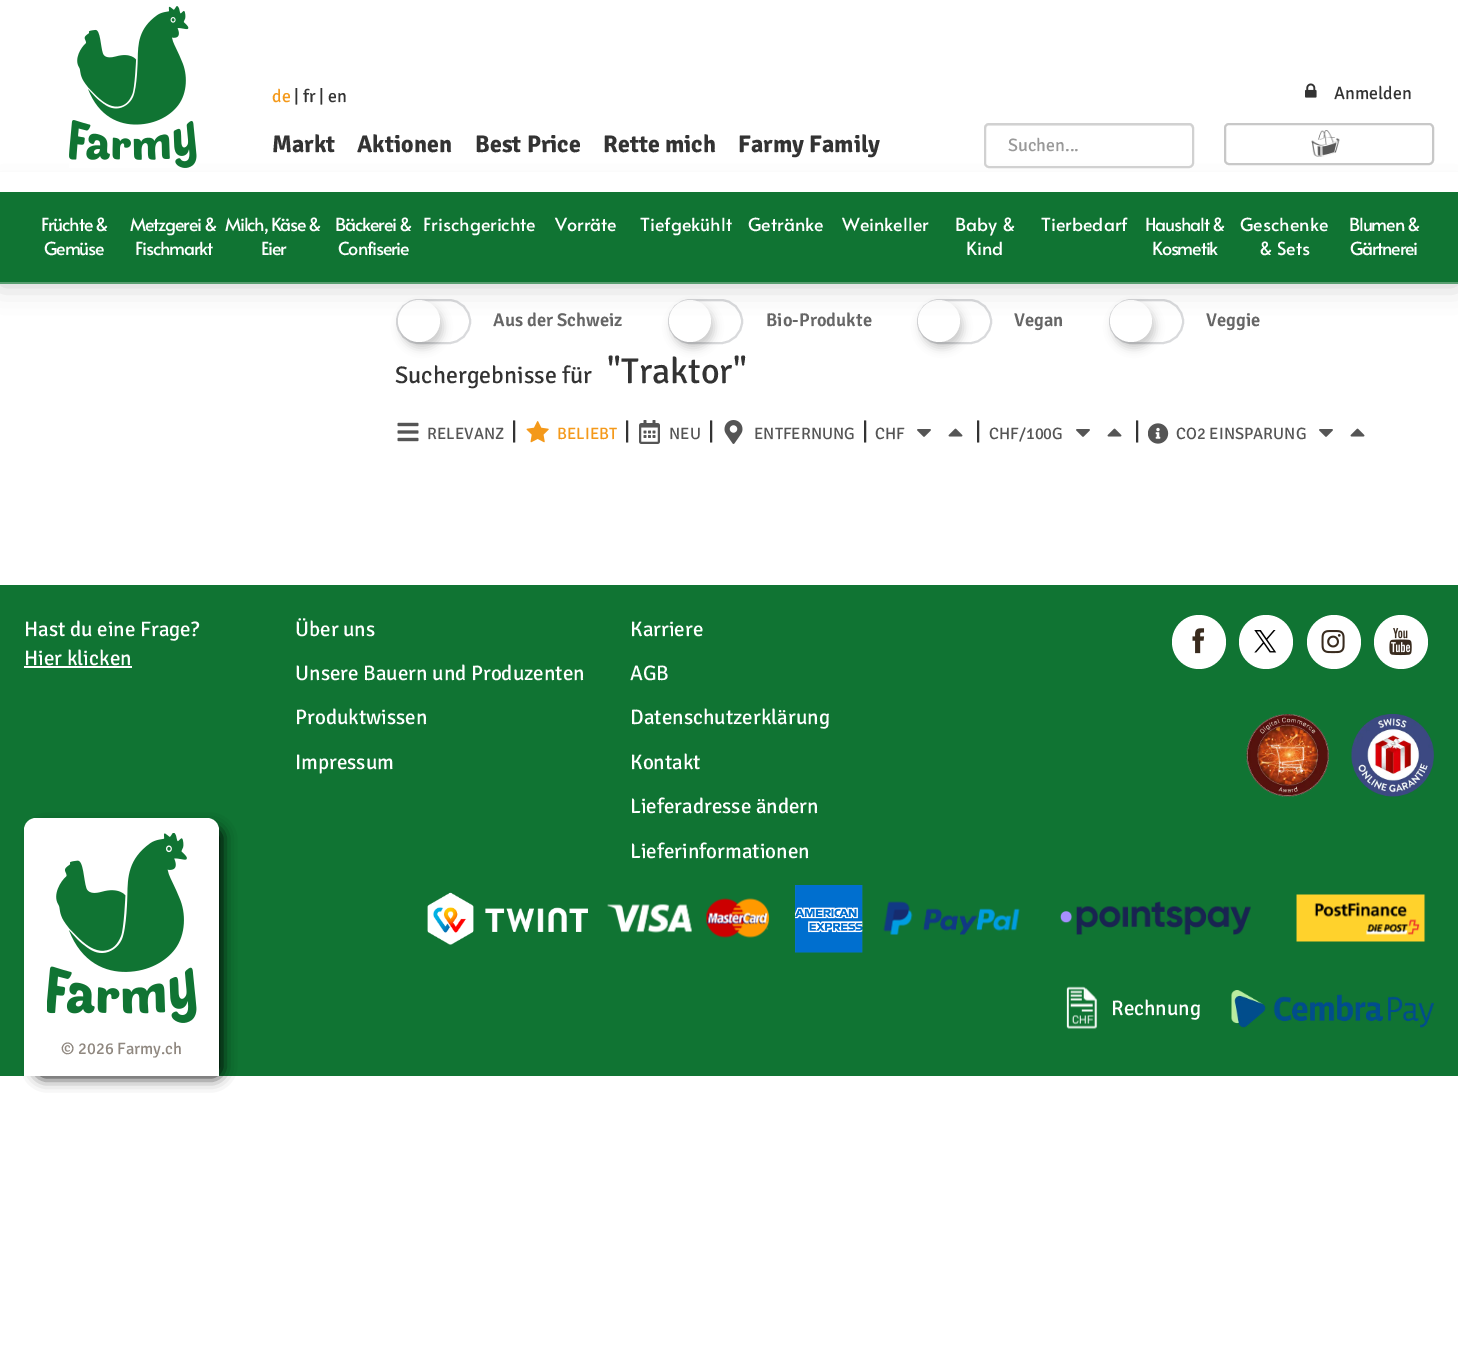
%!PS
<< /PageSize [1458 1345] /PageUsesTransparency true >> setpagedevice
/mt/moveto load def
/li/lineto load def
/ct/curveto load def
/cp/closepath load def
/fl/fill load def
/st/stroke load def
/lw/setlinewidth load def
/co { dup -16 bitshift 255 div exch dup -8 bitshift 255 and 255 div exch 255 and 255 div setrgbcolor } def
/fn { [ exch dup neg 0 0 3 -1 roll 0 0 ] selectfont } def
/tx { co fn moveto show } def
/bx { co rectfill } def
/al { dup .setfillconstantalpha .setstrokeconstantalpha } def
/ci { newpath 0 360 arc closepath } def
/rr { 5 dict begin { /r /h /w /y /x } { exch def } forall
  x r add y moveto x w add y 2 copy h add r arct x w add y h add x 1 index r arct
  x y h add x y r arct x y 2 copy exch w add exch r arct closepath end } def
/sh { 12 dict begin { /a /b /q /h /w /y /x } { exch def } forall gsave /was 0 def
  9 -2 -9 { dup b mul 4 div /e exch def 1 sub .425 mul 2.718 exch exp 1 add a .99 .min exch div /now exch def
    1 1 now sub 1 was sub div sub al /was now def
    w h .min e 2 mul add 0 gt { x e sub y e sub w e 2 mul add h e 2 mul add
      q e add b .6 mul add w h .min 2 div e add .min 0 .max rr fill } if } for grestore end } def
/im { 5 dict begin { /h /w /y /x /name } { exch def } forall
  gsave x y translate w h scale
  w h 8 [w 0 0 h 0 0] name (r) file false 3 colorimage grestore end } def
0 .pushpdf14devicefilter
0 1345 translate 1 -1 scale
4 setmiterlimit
0 0 1458 1345 16#FFFFFF bx
16#D9DADC co
2 lw
397 300 73 43 21.5 rr st
16#000000 co
401 306 42 42 21 4.5 .2 sh
16#FFFFFF co
419 321 21 ci fl
16#D9DADC co
669 300 73 43 21.5 rr st
16#000000 co
672 306 42 42 21 4.5 .2 sh
16#FFFFFF co
690 321 21 ci fl
16#D9DADC co
918 300 73 43 21.5 rr st
16#000000 co
921 306 42 42 21 4.5 .2 sh
16#FFFFFF co
939 321 21 ci fl
16#D9DADC co
1110 300 73 43 21.5 rr st
16#000000 co
1113 306 42 42 21 4.5 .2 sh
16#FFFFFF co
1131 321 21 ci fl
16#000000 co
0 194 1458 91 0 13.5 .2 sh
0 172 1458 20 16#FFFFFF bx
(media/1.raw) 69 6 128 162 im
(media/2.raw) 1305 83 12 15 im
16#ECECEC co
988 126 mt 1190 126 li 1191 126 1192 127 1192 129 ct 1192 166 li 1193 166 1193 165 1193 164 ct 1193 128 li 1193 126 1192 125 1190 125 ct 989 125 li 987 125 986 126 986 128 ct 986 129 li 986 127 987 126 988 126 ct cp fl
16#D1D1D1 co
985 124 208 43 4 rr st
16#C8C8C8 co
1225 124 208 40 4 rr st
(media/3.raw) 1311 130 29 27 im
0 192 1458 90 16#107433 bx
0 282 1458 2 16#589E70 bx
(media/4.raw) 397 422 22 20 im
(media/5.raw) 526 421 23 22 im
(media/6.raw) 639 420 21 24 im
(media/7.raw) 724 420 19 24 im
(media/8.raw) 917 429 14 8 im
(media/9.raw) 948 428 15 9 im
(media/8.raw) 1076 429 14 8 im
(media/9.raw) 1107 428 15 9 im
(media/10.raw) 1148 423 21 21 im
(media/8.raw) 1319 429 14 8 im
(media/9.raw) 1350 428 15 9 im
0 585 1458 491 16#107433 bx
24 666 108 2 16#FFFFFF bx
1199 642 27 ci fl
(media/11.raw) 1192 628 13 26 im
1266 642 27 ci fl
(media/12.raw) 1254 630 23 23 im
1334 642 27 ci fl
(media/13.raw) 1321 630 24 24 im
1401 642 27 ci fl
(media/14.raw) 1389 628 23 28 im
(media/15.raw) 1246 714 83 83 im
(media/16.raw) 1351 714 83 83 im
(media/17.raw) 427 892 161 53 im
(media/18.raw) 607 898 163 40 im
(media/19.raw) 795 885 68 68 im
(media/20.raw) 883 901 137 34 im
(media/21.raw) 1060 901 191 34 im
(media/22.raw) 1296 894 130 48 im
(media/23.raw) 1066 986 32 43 im
(media/24.raw) 1231 990 203 38 im
16#000000 co
36 828 186 249 8 7 1 sh
16#FFFFFF co
36 818 mt 207 818 li 213.5 818 219 823.5 219 830 ct 219 1076 li 24 1076 li 24 830 li 24 823.5 29.5 818 36 818 ct cp fl
(media/25.raw) 47 833 150 190 im
(de) 272 102 /Signika-Regular 18 16#F4991A tx
(| fr | en) 294 102 /Signika-Regular 18 16#333333 tx
(Markt) 272 152 /Signika-Bold 24 16#333333 tx
(Aktionen) 357 152 /Signika-Bold 24 16#333333 tx
(Best Price) 475 152 /Signika-Bold 24 16#333333 tx
(Rette mich) 603 152 /Signika-Bold 24 16#333333 tx
(Farmy Family) 738 152 /Signika-Bold 24 16#333333 tx
(Anmelden) 1334 99 /Signika-Regular 18 16#333333 tx
(Suchen...) 1008 151 /Signika-Regular 18 16#999999 tx
/Alata-Regular 18 fn
16#FFFFFF co
41 231 mt -1.2 0 (Früchte &) ashow
44 255 mt -1.2 0 (Gemüse) ashow
130 231 mt -1.2 0 (Metzgerei &) ashow
135 255 mt -1.2 0 (Fischmarkt) ashow
225 231 mt -1.2 0 (Milch, Käse &) ashow
261 255 mt -1.2 0 (Eier) ashow
335 231 mt -1.2 0 (Bäckerei &) ashow
338 255 mt -1.2 0 (Confiserie) ashow
(Frischgerichte) 423 231 /Alata-Regular 18 16#FFFFFF tx
(Vorräte) 555 231 /Alata-Regular 18 16#FFFFFF tx
(Tiefgekühlt) 640 231 /Alata-Regular 18 16#FFFFFF tx
(Getränke) 748 231 /Alata-Regular 18 16#FFFFFF tx
(Weinkeller) 842 231 /Alata-Regular 18 16#FFFFFF tx
(Baby &) 955 231 /Alata-Regular 18 16#FFFFFF tx
(Kind) 966 255 /Alata-Regular 18 16#FFFFFF tx
(Tierbedarf) 1041 231 /Alata-Regular 18 16#FFFFFF tx
1145 231 mt -1.2 0 (Haushalt &) ashow
1152 255 mt -1.2 0 (Kosmetik) ashow
(Geschenke) 1240 231 /Alata-Regular 18 16#FFFFFF tx
(& Sets) 1259 255 /Alata-Regular 18 16#FFFFFF tx
1349 231 mt -1.2 0 (Blumen &) ashow
1350 255 mt -1.2 0 (Gärtnerei) ashow
(Aus der Schweiz) 493 326 /Signika-SemiBold 18.5 16#666666 tx
(Bio-Produkte) 766 326 /Signika-SemiBold 18.5 16#666666 tx
(Vegan) 1014 326 /Signika-SemiBold 18.5 16#666666 tx
(Veggie) 1206 326 /Signika-SemiBold 18.5 16#666666 tx
(Suchergebnisse für) 395 383 /Signika-Regular 24 16#333333 tx
("Traktor") 607 383 /Signika-Regular 36 16#333333 tx
(RELEVANZ) 427 439 /Signika-Regular 16.5 16#555555 tx
(|) 511 439 /Signika-Regular 24 16#333333 tx
(BELIEBT) 557 439 /Signika-Regular 16.5 16#F4991A tx
(|) 624 439 /Signika-Regular 24 16#333333 tx
(NEU) 669 439 /Signika-Regular 16.5 16#555555 tx
(|) 708 439 /Signika-Regular 24 16#333333 tx
(ENTFERNUNG) 754 439 /Signika-Regular 16.5 16#555555 tx
(|) 862 439 /Signika-Regular 24 16#333333 tx
(CHF) 875 439 /Signika-Regular 16.5 16#555555 tx
(|) 975 439 /Signika-Regular 24 16#333333 tx
(CHF/100G) 989 439 /Signika-Regular 16.5 16#555555 tx
(|) 1134 439 /Signika-Regular 24 16#333333 tx
(CO2 EINSPARUNG) 1176 439 /Signika-Regular 16.5 16#555555 tx
(Hast du eine Frage?) 24 636 /Signika-Regular 21 16#FFFFFF tx
(Hier klicken) 24 665 /Signika-Regular 21 16#FFFFFF tx
(Über uns) 295 636 /Signika-Regular 21 16#FFFFFF tx
(Unsere Bauern und Produzenten) 295 680 /Signika-Regular 21 16#FFFFFF tx
(Produktwissen) 295 724 /Signika-Regular 21 16#FFFFFF tx
(Impressum) 295 769 /Signika-Regular 21 16#FFFFFF tx
(Karriere) 630 636 /Signika-Regular 21 16#FFFFFF tx
(AGB) 630 680 /Signika-Regular 21 16#FFFFFF tx
(Datenschutzerklärung) 630 724 /Signika-Regular 21 16#FFFFFF tx
(Kontakt) 630 769 /Signika-Regular 21 16#FFFFFF tx
(Lieferadresse ändern) 630 813 /Signika-Regular 21 16#FFFFFF tx
(Lieferinformationen) 630 858 /Signika-Regular 21 16#FFFFFF tx
(Rechnung) 1111 1015 /Signika-Regular 21 16#FFFFFF tx
(© 2026 Farmy.ch) 61 1054 /Signika-Regular 16.5 16#8F877F tx
.poppdf14devicefilter showpage
